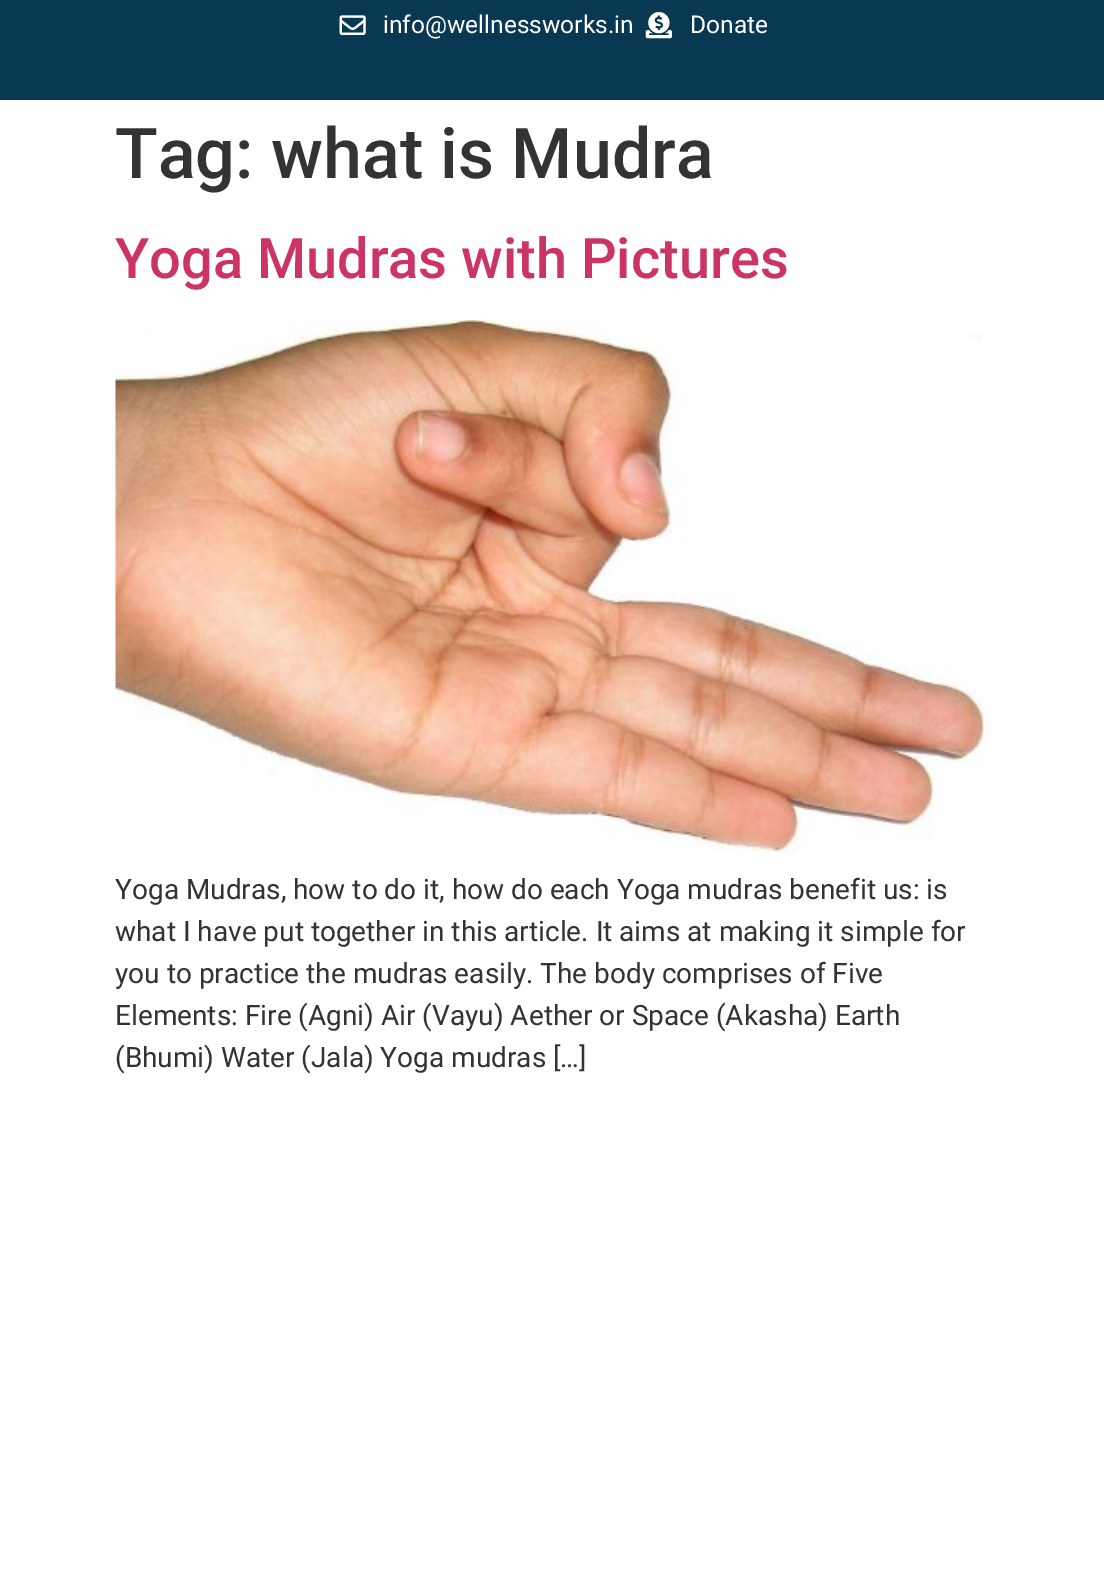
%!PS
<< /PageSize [1104 1585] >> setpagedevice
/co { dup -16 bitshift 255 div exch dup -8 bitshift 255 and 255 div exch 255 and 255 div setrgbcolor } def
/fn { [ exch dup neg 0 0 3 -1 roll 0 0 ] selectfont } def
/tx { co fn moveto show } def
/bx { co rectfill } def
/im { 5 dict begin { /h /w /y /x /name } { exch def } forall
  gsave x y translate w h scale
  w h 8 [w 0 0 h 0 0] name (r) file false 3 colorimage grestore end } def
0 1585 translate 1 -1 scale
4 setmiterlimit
0 0 1104 1585 16#FFFFFF bx
0 0 1104 100 16#093852 bx
(media/1.raw) 339 15 27 20 im
(media/2.raw) 645 12 27 27 im
(media/3.raw) 115 320 876 533 im
(info@wellnessworks.in) 383 33 /Roboto-Regular 24.5 16#FFFFFF tx
(Donate) 690 33 /Roboto-Regular 24.5 16#FFFFFF tx
(Tag: what is Mudra) 115 178 /Roboto-Medium 70 16#333333 tx
(Yoga Mudras with Pictures) 115 278 /Roboto-Medium 56 16#CC3366 tx
(Yoga Mudras, how to do it, how do each Yoga mudras benefit us: is) 115 899 /Roboto-Regular 28 16#333333 tx
(what I have put together in this article. It aims at making it simple for) 115 941 /Roboto-Regular 28 16#333333 tx
(you to practice the mudras easily. The body comprises of Five) 115 983 /Roboto-Regular 28 16#333333 tx
(Elements: Fire \(Agni\) Air \(Vayu\) Aether or Space \(Akasha\) Earth) 115 1025 /Roboto-Regular 28 16#333333 tx
(\(Bhumi\) Water \(Jala\) Yoga mudras […]) 115 1067 /Roboto-Regular 28 16#333333 tx
showpage
